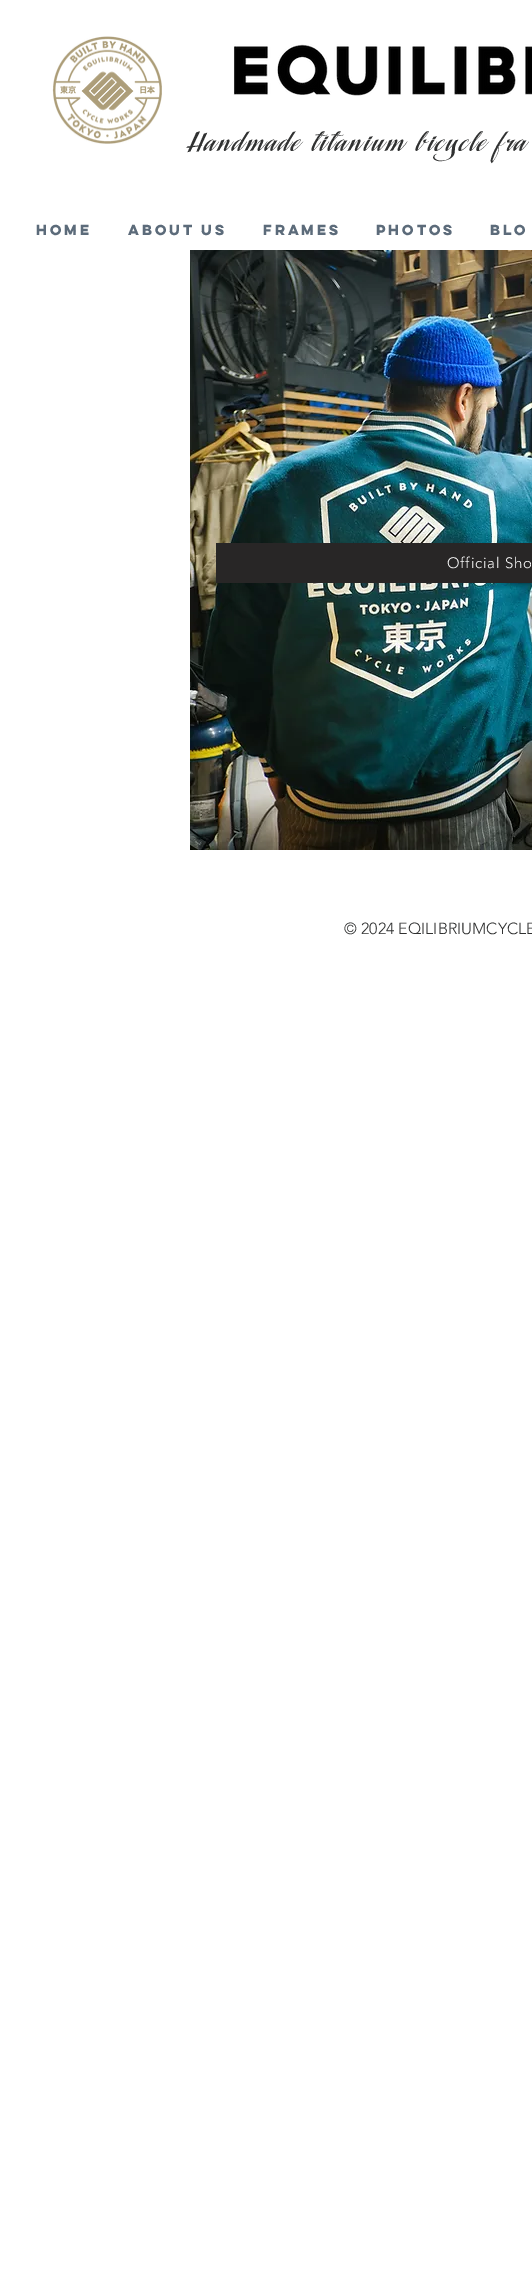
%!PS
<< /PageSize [532 2276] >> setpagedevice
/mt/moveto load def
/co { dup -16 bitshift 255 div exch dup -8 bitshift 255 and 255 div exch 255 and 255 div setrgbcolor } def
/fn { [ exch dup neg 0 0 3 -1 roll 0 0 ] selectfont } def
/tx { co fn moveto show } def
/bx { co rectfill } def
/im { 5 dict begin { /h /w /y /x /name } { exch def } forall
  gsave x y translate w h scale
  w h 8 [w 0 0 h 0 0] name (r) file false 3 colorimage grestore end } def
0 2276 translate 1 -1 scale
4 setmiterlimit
0 0 532 2276 16#FFFFFF bx
(media/1.raw) 52 36 110 108 im
(media/2.raw) 233 44 299 52 im
(media/3.raw) 190 250 342 600 im
216 543 316 40 16#282626 bx
/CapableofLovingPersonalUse-Italic 32 fn
16#303131 co
185 151 mt 2.55 0 (Handmade titanium bicycle fra) ashow
(Home) 36 235 /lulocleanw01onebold-Bold 13 16#5C6B7A tx
(About us) 128 235 /lulocleanw01onebold-Bold 13 16#5C6B7A tx
(FRAMES) 263 235 /lulocleanw01onebold-Bold 13 16#5C6B7A tx
(Photos) 376 235 /lulocleanw01onebold-Bold 13 16#5C6B7A tx
(Blo) 490 235 /lulocleanw01onebold-Bold 13 16#5C6B7A tx
/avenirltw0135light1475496-Light 15 fn
16#FFFFFF co
447 568 mt .75 0 (Official Sho) ashow
(© 2024 EQILIBRIUMCYCLE) 344 934 /avenirltw0135light1475496-Light 16 16#303131 tx
showpage
